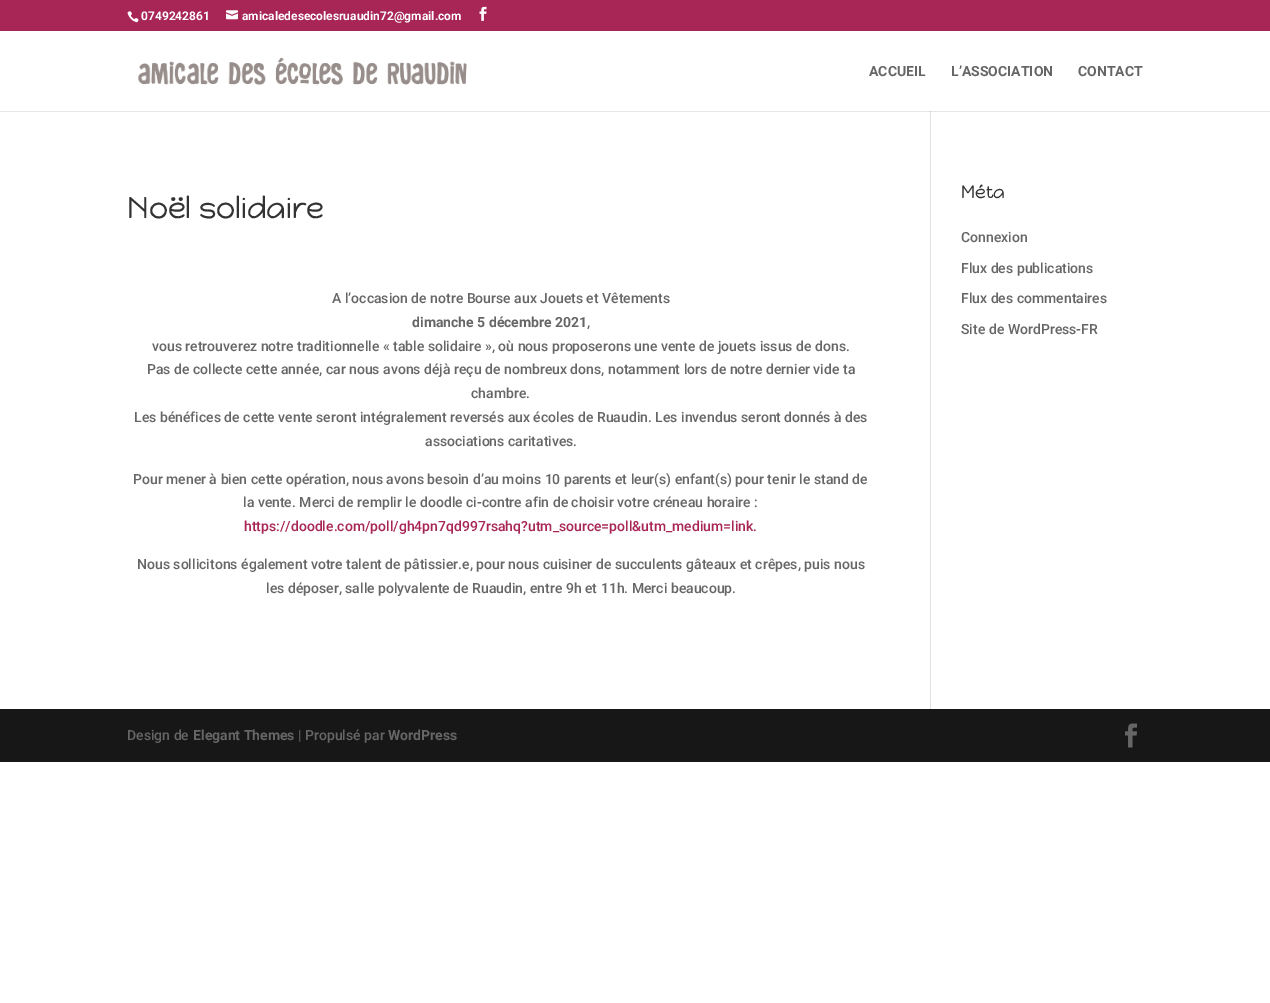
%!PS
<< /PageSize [1270 1003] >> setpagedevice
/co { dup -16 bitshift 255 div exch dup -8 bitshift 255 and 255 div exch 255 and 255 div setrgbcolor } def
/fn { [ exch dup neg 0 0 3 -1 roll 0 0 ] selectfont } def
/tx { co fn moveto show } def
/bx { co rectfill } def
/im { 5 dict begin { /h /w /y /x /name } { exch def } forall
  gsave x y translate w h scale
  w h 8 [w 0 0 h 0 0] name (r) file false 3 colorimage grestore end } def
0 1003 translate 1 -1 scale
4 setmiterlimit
0 0 1270 1003 16#FFFFFF bx
0 111 1270 1 16#E6E6E6 bx
0 0 1270 31 16#A82656 bx
(media/1.raw) 127 11 12 12 im
(media/2.raw) 226 10 12 10 im
(media/3.raw) 479 6 8 15 im
(media/4.raw) 138 57 329 28 im
930 111 1 598 16#E2E2E2 bx
930 111 1 1 16#CBCBCB bx
0 709 1270 53 16#171717 bx
(media/5.raw) 1125 723 12 25 im
(0749242861) 141 20 /Roboto-Bold 12 16#FFFFFF tx
(amicaledesecolesruaudin72@gmail.com) 242 20 /Roboto-Bold 12 16#FFFFFF tx
(ACCUEIL) 869 76 /Roboto-Bold 14 16#666666 tx
(L’ASSOCIATION) 951 76 /Roboto-Bold 14 16#666666 tx
(CONTACT) 1078 76 /Roboto-Bold 14 16#666666 tx
(Noël solidaire) 127 218 /HappyMonkey-Regular 30 16#333333 tx
(A l’occasion de notre Bourse aux Jouets et Vêtements) 332 303 /Roboto-Medium 14 16#666666 tx
(dimanche 5 décembre 2021) 412 327 /Roboto-Bold 14 16#666666 tx
(,) 587 327 /Roboto-Medium 14 16#666666 tx
(vous retrouverez notre traditionnelle « table solidaire », où nous proposerons une vente de jouets issus de dons.) 152 351 /Roboto-Medium 14 16#666666 tx
(Pas de collecte cette année, car nous avons déjà reçu de nombreux dons, notamment lors de notre dernier vide ta) 147 374 /Roboto-Medium 14 16#666666 tx
(chambre.) 471 398 /Roboto-Medium 14 16#666666 tx
(Les bénéfices de cette vente seront intégralement reversés aux écoles de Ruaudin. Les invendus seront donnés à des) 134 422 /Roboto-Medium 14 16#666666 tx
(associations caritatives.) 425 446 /Roboto-Medium 14 16#666666 tx
(Pour mener à bien cette opération, nous avons besoin d’au moins 10 parents et leur\(s\) enfant\(s\) pour tenir le stand de) 133 484 /Roboto-Medium 14 16#666666 tx
(la vente. Merci de remplir le doodle ci-contre afin de choisir votre créneau horaire :) 243 507 /Roboto-Medium 14 16#666666 tx
(https://doodle.com/poll/gh4pn7qd997rsahq?utm_source=poll&utm_medium=link.) 244 531 /Roboto-Medium 14 16#A82656 tx
(Nous sollicitons également votre talent de pâtissier.e, pour nous cuisiner de succulents gâteaux et crêpes, puis nous) 137 569 /Roboto-Medium 14 16#666666 tx
(les déposer, salle polyvalente de Ruaudin, entre 9h et 11h. Merci beaucoup.) 266 593 /Roboto-Medium 14 16#666666 tx
(Méta) 961 198 /HappyMonkey-Regular 18 16#333333 tx
(Connexion) 961 242 /Roboto-Medium 14 16#666666 tx
(Flux des publications) 961 273 /Roboto-Medium 14 16#666666 tx
(Flux des commentaires) 961 303 /Roboto-Medium 14 16#666666 tx
(Site de WordPress-FR) 961 334 /Roboto-Medium 14 16#666666 tx
(Design de) 127 740 /Roboto-Medium 14 16#666666 tx
(Elegant Themes) 193 740 /Roboto-Bold 14 16#666666 tx
(| Propulsé par) 298 740 /Roboto-Medium 14 16#666666 tx
(WordPress) 388 740 /Roboto-Bold 14 16#666666 tx
showpage
